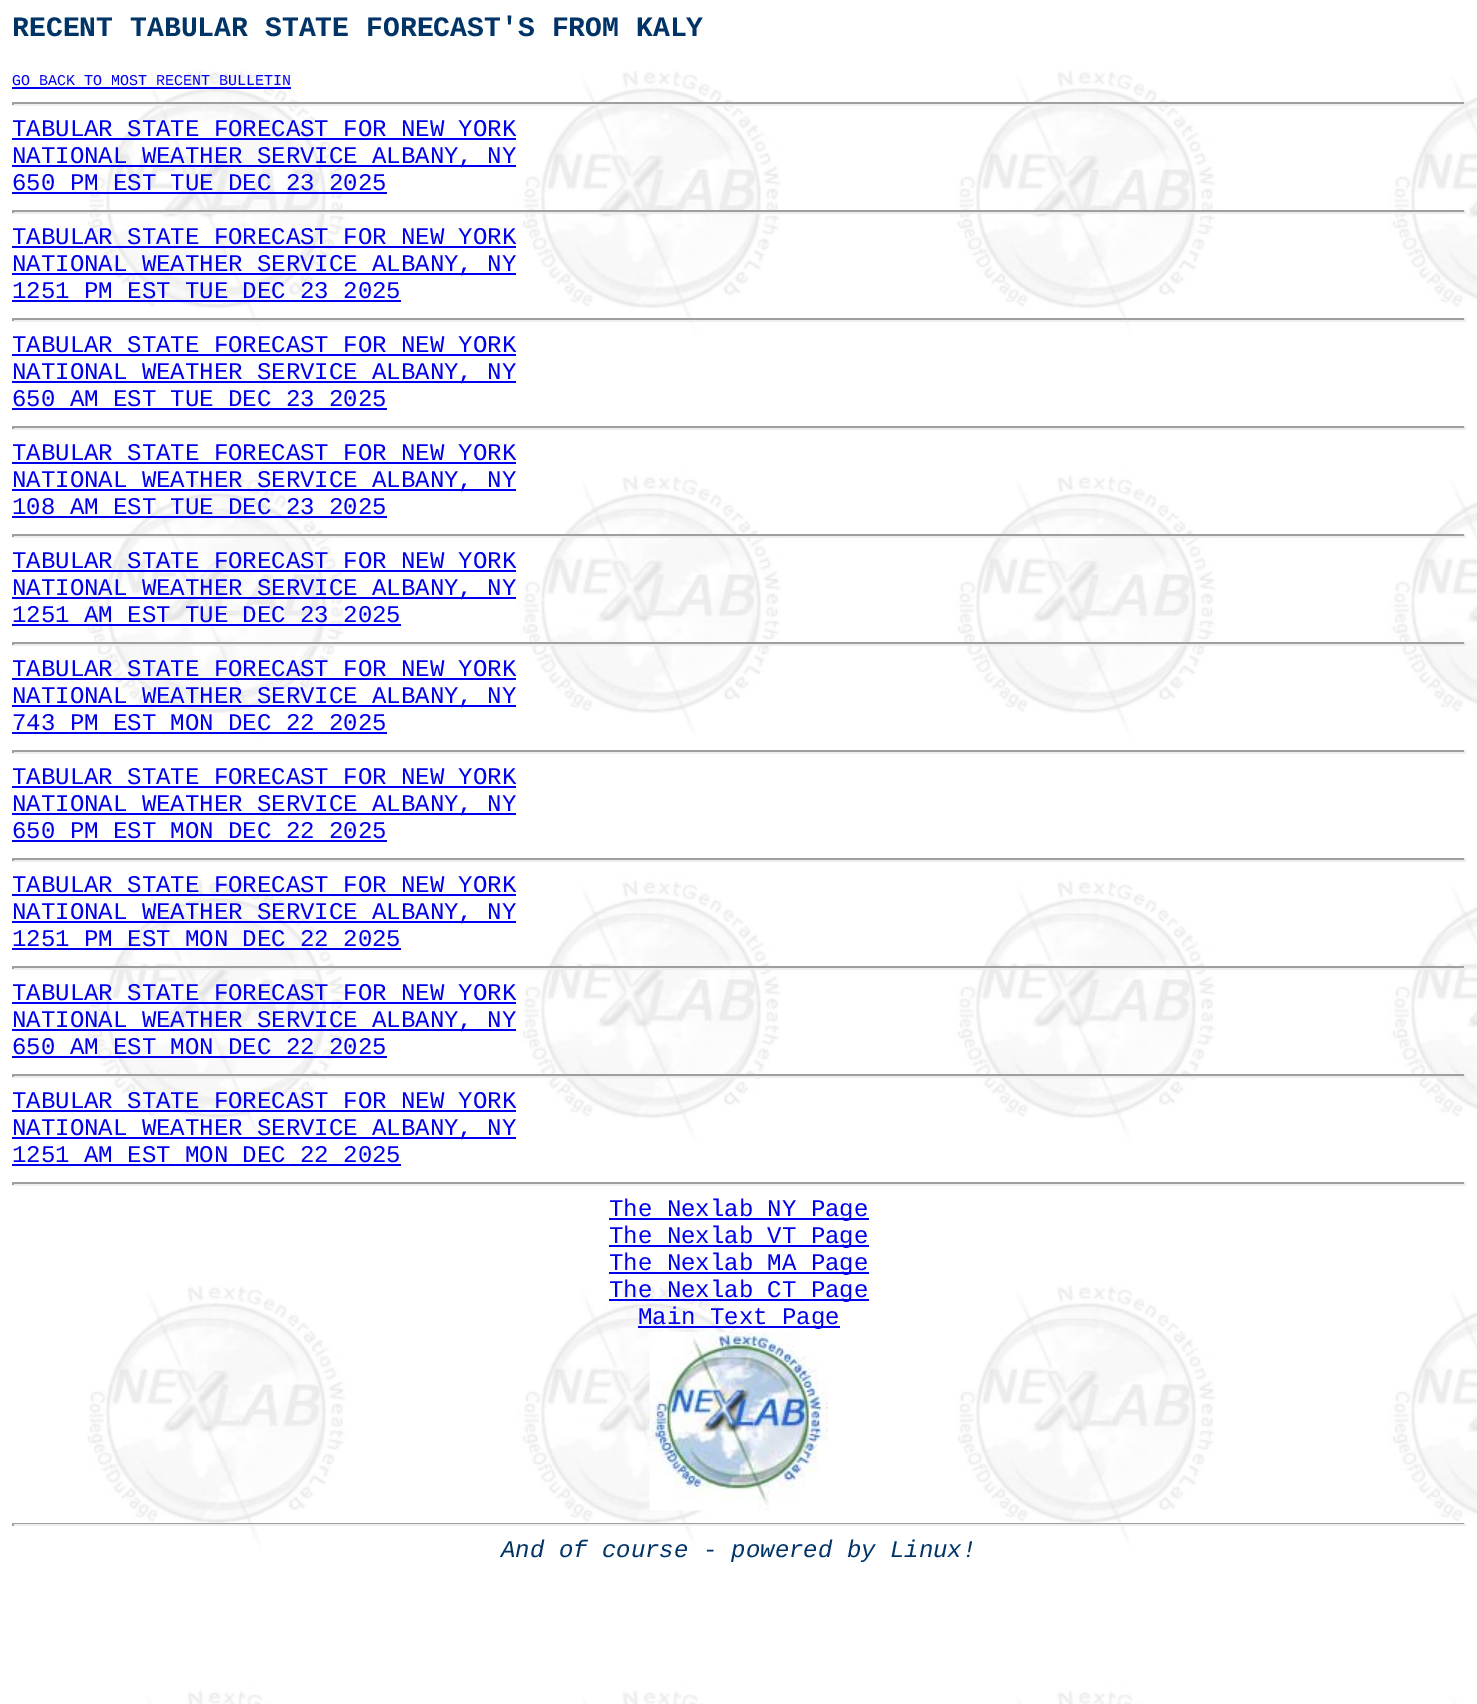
%!PS
<< /PageSize [1477 1704] >> setpagedevice
/co { dup -16 bitshift 255 div exch dup -8 bitshift 255 and 255 div exch 255 and 255 div setrgbcolor } def
/fn { [ exch dup neg 0 0 3 -1 roll 0 0 ] selectfont } def
/tx { co fn moveto show } def
/bx { co rectfill } def
/im { 5 dict begin { /h /w /y /x /name } { exch def } forall
  gsave x y translate w h scale
  w h 8 [w 0 0 h 0 0] name (r) file false 3 colorimage grestore end } def
0 1704 translate 1 -1 scale
4 setmiterlimit
0 0 1477 1704 16#FFFFFF bx
(media/1.raw) 87 70 1390 1634 im
12 87 279 2 16#0000EE bx
12 102 1454 2 16#9F9F9F bx
1464 102 2 3 16#EEEEEE bx
12 104 1454 2 16#EEEEEE bx
12 102 2 3 16#9F9F9F bx
12 138 504 2 16#0000EE bx
12 165 504 2 16#0000EE bx
12 192 375 2 16#0000EE bx
12 210 1454 2 16#9F9F9F bx
1464 210 2 3 16#EEEEEE bx
12 212 1454 2 16#EEEEEE bx
12 210 2 3 16#9F9F9F bx
12 246 504 2 16#0000EE bx
12 273 504 2 16#0000EE bx
12 300 389 2 16#0000EE bx
12 318 1454 2 16#9F9F9F bx
1464 318 2 3 16#EEEEEE bx
12 320 1454 2 16#EEEEEE bx
12 318 2 3 16#9F9F9F bx
12 354 504 2 16#0000EE bx
12 381 504 2 16#0000EE bx
12 408 375 2 16#0000EE bx
12 426 1454 2 16#9F9F9F bx
1464 426 2 3 16#EEEEEE bx
12 428 1454 2 16#EEEEEE bx
12 426 2 3 16#9F9F9F bx
12 462 504 2 16#0000EE bx
12 489 504 2 16#0000EE bx
12 516 375 2 16#0000EE bx
12 534 1454 2 16#9F9F9F bx
1464 534 2 3 16#EEEEEE bx
12 536 1454 2 16#EEEEEE bx
12 534 2 3 16#9F9F9F bx
12 570 504 2 16#0000EE bx
12 597 504 2 16#0000EE bx
12 624 389 2 16#0000EE bx
12 642 1454 2 16#9F9F9F bx
1464 642 2 3 16#EEEEEE bx
12 644 1454 2 16#EEEEEE bx
12 642 2 3 16#9F9F9F bx
12 678 504 2 16#0000EE bx
12 705 504 2 16#0000EE bx
12 732 375 2 16#0000EE bx
12 750 1454 2 16#9F9F9F bx
1464 750 2 3 16#EEEEEE bx
12 752 1454 2 16#EEEEEE bx
12 750 2 3 16#9F9F9F bx
12 786 504 2 16#0000EE bx
12 813 504 2 16#0000EE bx
12 840 375 2 16#0000EE bx
12 858 1454 2 16#9F9F9F bx
1464 858 2 3 16#EEEEEE bx
12 860 1454 2 16#EEEEEE bx
12 858 2 3 16#9F9F9F bx
12 894 504 2 16#0000EE bx
12 921 504 2 16#0000EE bx
12 948 389 2 16#0000EE bx
12 966 1454 2 16#9F9F9F bx
1464 966 2 3 16#EEEEEE bx
12 968 1454 2 16#EEEEEE bx
12 966 2 3 16#9F9F9F bx
12 1002 504 2 16#0000EE bx
12 1029 504 2 16#0000EE bx
12 1056 375 2 16#0000EE bx
12 1074 1454 2 16#9F9F9F bx
1464 1074 2 3 16#EEEEEE bx
12 1076 1454 2 16#EEEEEE bx
12 1074 2 3 16#9F9F9F bx
12 1110 504 2 16#0000EE bx
12 1137 504 2 16#0000EE bx
12 1164 389 2 16#0000EE bx
12 1182 1454 2 16#9F9F9F bx
1464 1182 2 3 16#EEEEEE bx
12 1184 1454 2 16#EEEEEE bx
12 1182 2 3 16#9F9F9F bx
609 1218 260 2 16#0000EE bx
609 1245 260 2 16#0000EE bx
609 1272 260 2 16#0000EE bx
609 1299 260 2 16#0000EE bx
638 1326 202 2 16#0000EE bx
(media/2.raw) 649 1332 179 179 im
12 1523 1454 1 16#9F9F9F bx
1464 1523 2 3 16#EEEEEE bx
12 1524 1454 2 16#EEEEEE bx
12 1523 2 3 16#9F9F9F bx
(RECENT TABULAR STATE FORECAST'S FROM KALY) 12 36 /LiberationMono-Bold 28.1 16#003366 tx
(GO BACK TO MOST RECENT BULLETIN) 12 85 /LiberationMono-Regular 15 16#0000EE tx
(TABULAR STATE FORECAST FOR NEW YORK) 12 136 /LiberationMono-Regular 24 16#0000EE tx
(NATIONAL WEATHER SERVICE ALBANY, NY) 12 163 /LiberationMono-Regular 24 16#0000EE tx
(650 PM EST TUE DEC 23 2025) 12 190 /LiberationMono-Regular 24 16#0000EE tx
(TABULAR STATE FORECAST FOR NEW YORK) 12 244 /LiberationMono-Regular 24 16#0000EE tx
(NATIONAL WEATHER SERVICE ALBANY, NY) 12 271 /LiberationMono-Regular 24 16#0000EE tx
(1251 PM EST TUE DEC 23 2025) 12 298 /LiberationMono-Regular 24 16#0000EE tx
(TABULAR STATE FORECAST FOR NEW YORK) 12 352 /LiberationMono-Regular 24 16#0000EE tx
(NATIONAL WEATHER SERVICE ALBANY, NY) 12 379 /LiberationMono-Regular 24 16#0000EE tx
(650 AM EST TUE DEC 23 2025) 12 406 /LiberationMono-Regular 24 16#0000EE tx
(TABULAR STATE FORECAST FOR NEW YORK) 12 460 /LiberationMono-Regular 24 16#0000EE tx
(NATIONAL WEATHER SERVICE ALBANY, NY) 12 487 /LiberationMono-Regular 24 16#0000EE tx
(108 AM EST TUE DEC 23 2025) 12 514 /LiberationMono-Regular 24 16#0000EE tx
(TABULAR STATE FORECAST FOR NEW YORK) 12 568 /LiberationMono-Regular 24 16#0000EE tx
(NATIONAL WEATHER SERVICE ALBANY, NY) 12 595 /LiberationMono-Regular 24 16#0000EE tx
(1251 AM EST TUE DEC 23 2025) 12 622 /LiberationMono-Regular 24 16#0000EE tx
(TABULAR STATE FORECAST FOR NEW YORK) 12 676 /LiberationMono-Regular 24 16#0000EE tx
(NATIONAL WEATHER SERVICE ALBANY, NY) 12 703 /LiberationMono-Regular 24 16#0000EE tx
(743 PM EST MON DEC 22 2025) 12 730 /LiberationMono-Regular 24 16#0000EE tx
(TABULAR STATE FORECAST FOR NEW YORK) 12 784 /LiberationMono-Regular 24 16#0000EE tx
(NATIONAL WEATHER SERVICE ALBANY, NY) 12 811 /LiberationMono-Regular 24 16#0000EE tx
(650 PM EST MON DEC 22 2025) 12 838 /LiberationMono-Regular 24 16#0000EE tx
(TABULAR STATE FORECAST FOR NEW YORK) 12 892 /LiberationMono-Regular 24 16#0000EE tx
(NATIONAL WEATHER SERVICE ALBANY, NY) 12 919 /LiberationMono-Regular 24 16#0000EE tx
(1251 PM EST MON DEC 22 2025) 12 946 /LiberationMono-Regular 24 16#0000EE tx
(TABULAR STATE FORECAST FOR NEW YORK) 12 1000 /LiberationMono-Regular 24 16#0000EE tx
(NATIONAL WEATHER SERVICE ALBANY, NY) 12 1027 /LiberationMono-Regular 24 16#0000EE tx
(650 AM EST MON DEC 22 2025) 12 1054 /LiberationMono-Regular 24 16#0000EE tx
(TABULAR STATE FORECAST FOR NEW YORK) 12 1108 /LiberationMono-Regular 24 16#0000EE tx
(NATIONAL WEATHER SERVICE ALBANY, NY) 12 1135 /LiberationMono-Regular 24 16#0000EE tx
(1251 AM EST MON DEC 22 2025) 12 1162 /LiberationMono-Regular 24 16#0000EE tx
(The Nexlab NY Page) 609 1216 /LiberationMono-Regular 24 16#0000EE tx
(The Nexlab VT Page) 609 1243 /LiberationMono-Regular 24 16#0000EE tx
(The Nexlab MA Page) 609 1270 /LiberationMono-Regular 24 16#0000EE tx
(The Nexlab CT Page) 609 1297 /LiberationMono-Regular 24 16#0000EE tx
(Main Text Page) 638 1324 /LiberationMono-Regular 24 16#0000EE tx
(And of course - powered by Linux!) 501 1557 /LiberationMono-Italic 24 16#003366 tx
showpage
